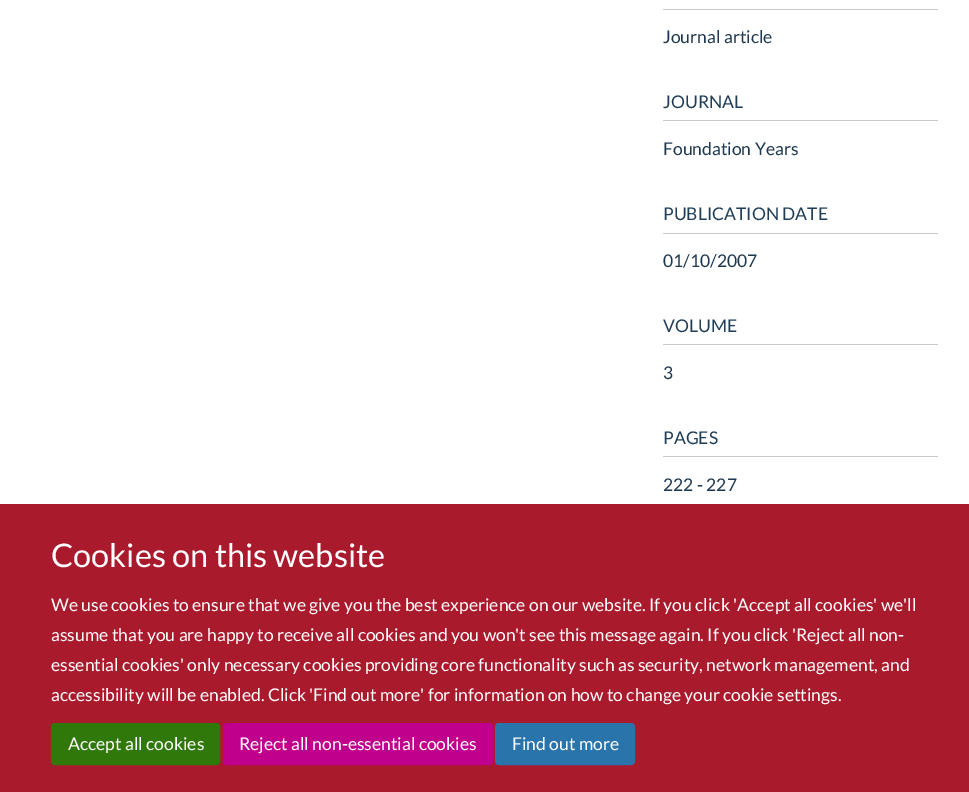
%!PS
<< /PageSize [969 792] >> setpagedevice
/fl/fill load def
/st/stroke load def
/gs/gsave load def
/gr/grestore load def
/co { dup -16 bitshift 255 div exch dup -8 bitshift 255 and 255 div exch 255 and 255 div setrgbcolor } def
/fn { [ exch dup neg 0 0 3 -1 roll 0 0 ] selectfont } def
/tx { co fn moveto show } def
/bx { co rectfill } def
/rr { 5 dict begin { /r /h /w /y /x } { exch def } forall
  x r add y moveto x w add y 2 copy h add r arct x w add y h add x 1 index r arct
  x y h add x y r arct x y 2 copy exch w add exch r arct closepath end } def
0 792 translate 1 -1 scale
4 setmiterlimit
0 0 969 792 16#FFFFFF bx
663 9 275 1 16#C6CACF bx
663 120 275 1 16#C6CACF bx
663 233 275 1 16#C6CACF bx
663 344 275 1 16#C6CACF bx
663 456 275 1 16#C6CACF bx
0 504 969 288 16#AA1A2D bx
16#31780A co
51.5 723.5 168 41 3.5 rr gs fl gr
st
16#C0008D co
223.5 723.5 269 41 3.5 rr gs fl gr
st
16#2A74AC co
495.5 723.5 139 41 3.5 rr gs fl gr
st
(Journal article) 663 43 /Lato-Regular 17.5 16#1D3850 tx
(JOURNAL) 663 108 /Lato-Regular 17.5 16#203E58 tx
(Foundation Years) 663 155 /Lato-Regular 17.5 16#1D3850 tx
(PUBLICATION DATE) 663 220 /Lato-Regular 17.5 16#203E58 tx
(01/10/2007) 663 267 /Lato-Regular 17.5 16#1D3850 tx
(VOLUME) 663 332 /Lato-Regular 17.5 16#203E58 tx
(3) 663 379 /Lato-Regular 17.5 16#1D3850 tx
(PAGES) 663 444 /Lato-Regular 17.5 16#203E58 tx
(222 - 227) 663 491 /Lato-Regular 17.5 16#1D3850 tx
(Cookies on this website) 51 567 /Lato-Regular 32.5 16#FFFFFF tx
(We use cookies to ensure that we give you the best experience on our website. If you click 'Accept all cookies' we'll) 51 611 /Lato-Regular 17.5 16#FFFFFF tx
(assume that you are happy to receive all cookies and you won't see this message again. If you click 'Reject all non-) 51 641 /Lato-Regular 17.5 16#FFFFFF tx
(essential cookies' only necessary cookies providing core functionality such as security, network management, and) 51 671 /Lato-Regular 17.5 16#FFFFFF tx
(accessibility will be enabled. Click 'Find out more' for information on how to change your cookie settings.) 51 701 /Lato-Regular 17.5 16#FFFFFF tx
(Accept all cookies) 68 750 /Lato-Regular 17.5 16#FFFFFF tx
(Reject all non-essential cookies) 239 750 /Lato-Regular 17.5 16#FFFFFF tx
(Find out more) 512 750 /Lato-Regular 17.5 16#FFFFFF tx
showpage
